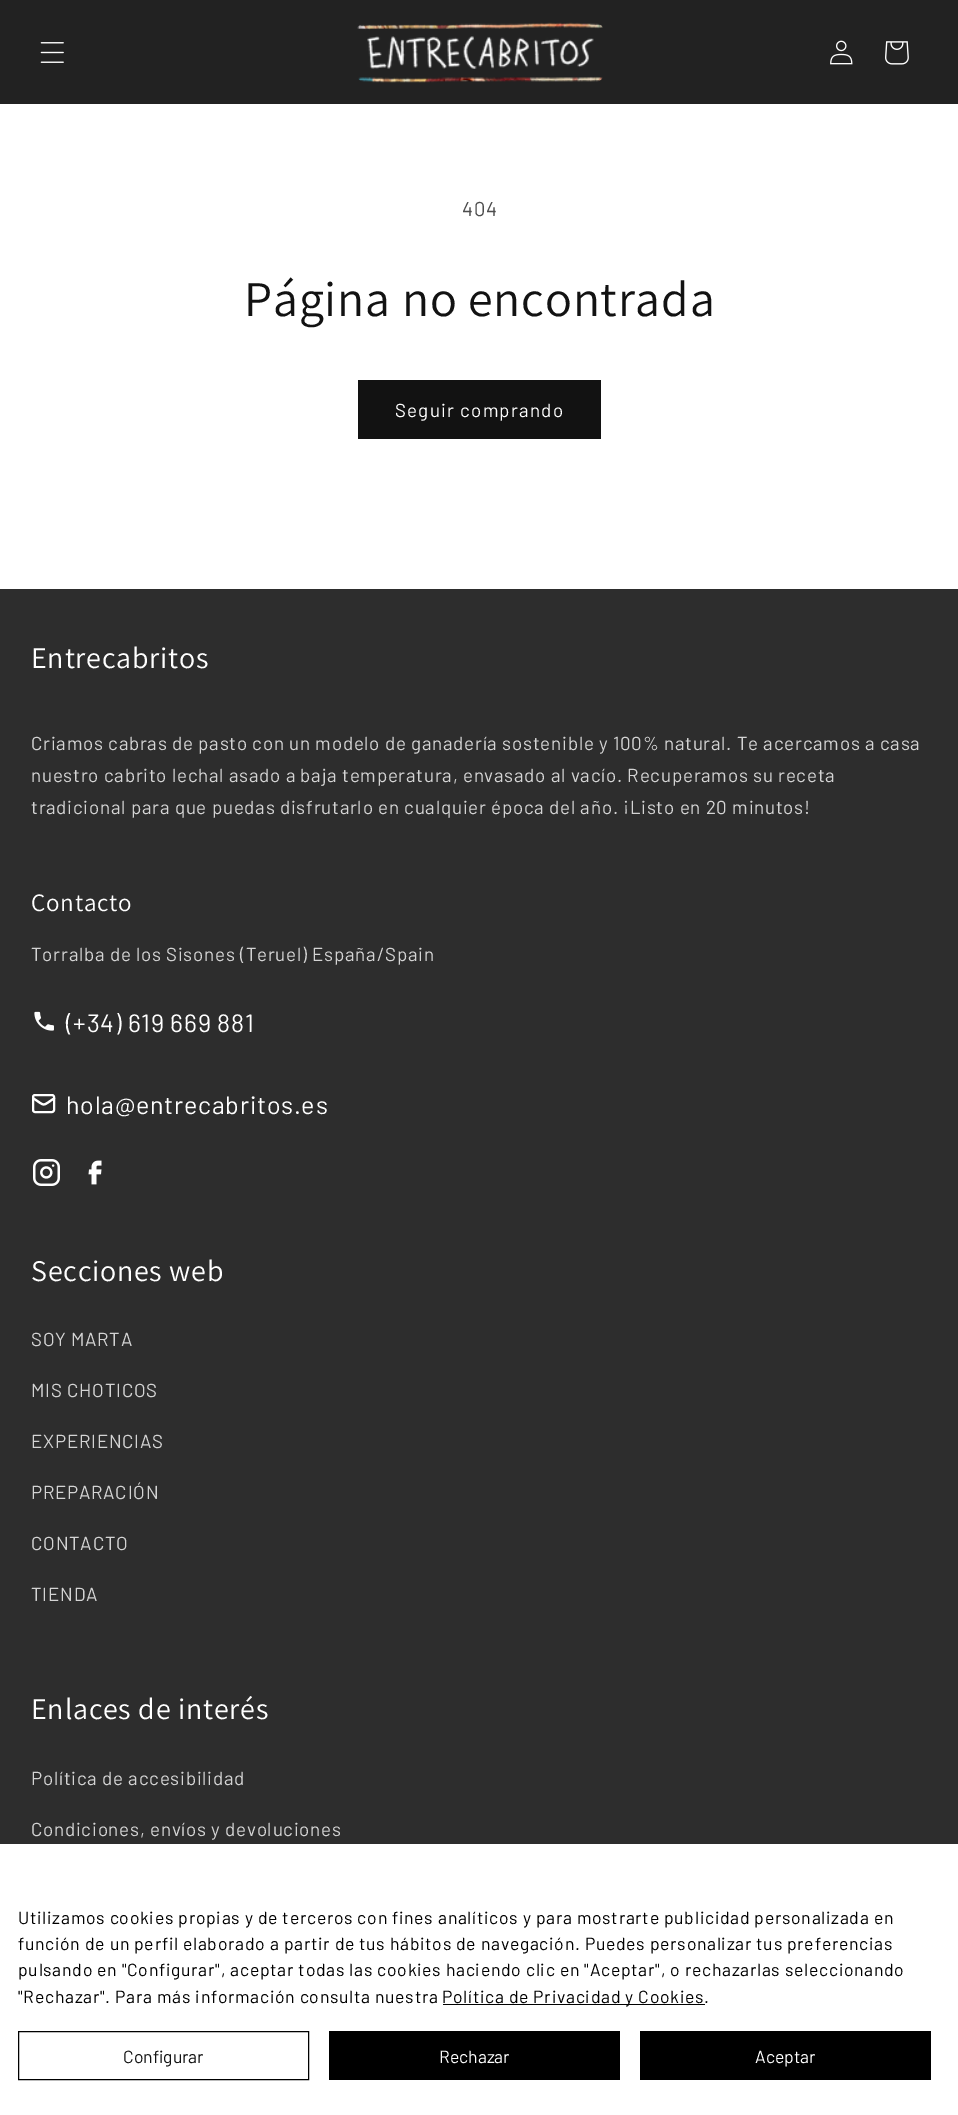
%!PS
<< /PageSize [958 2115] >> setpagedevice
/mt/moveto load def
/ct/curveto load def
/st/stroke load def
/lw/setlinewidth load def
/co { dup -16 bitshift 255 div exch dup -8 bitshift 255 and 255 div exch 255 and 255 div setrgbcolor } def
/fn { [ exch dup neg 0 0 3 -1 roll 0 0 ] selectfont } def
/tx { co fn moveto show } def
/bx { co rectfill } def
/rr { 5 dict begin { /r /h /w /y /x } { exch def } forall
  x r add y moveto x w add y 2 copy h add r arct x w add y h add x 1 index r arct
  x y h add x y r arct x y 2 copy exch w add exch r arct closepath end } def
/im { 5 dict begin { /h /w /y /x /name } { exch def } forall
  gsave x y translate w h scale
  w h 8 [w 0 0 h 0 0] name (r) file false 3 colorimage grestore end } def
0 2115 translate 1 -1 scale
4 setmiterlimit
0 0 958 2115 16#FFFFFF bx
0 0 958 104 16#222222 bx
(media/1.raw) 40 42 24 21 im
(media/2.raw) 357 22 246 61 im
(media/3.raw) 830 40 23 25 im
(media/4.raw) 885 41 24 24 im
358 380 243 59 16#121212 bx
0 589 958 1255 16#2D2D2D bx
(media/5.raw) 34 1011 20 20 im
16#FFFFFF co
2.1 lw
1 setlinecap
1 setlinejoin
54 1098.5 mt 41.5 1106.5 46 1106.5 33.5 1098.5 ct st
2 lw
0 setlinecap
0 setlinejoin
33 1095 21 17 2 rr st
(media/6.raw) 33 1159 27 27 im
(media/7.raw) 88 1160 14 25 im
443 2004 262 1 16#000000 bx
1 lw
18.5 2031.5 290 48 rectstroke
329 2031 291 49 16#000000 bx
640 2031 291 49 16#000000 bx
/Barlow-Regular 20 fn
16#4D4D4D co
462 216 mt .75 0 (404) ashow
/Assistant-Regular 50 fn
16#121212 co
244 316 mt .75 0 (Página no encontrada) ashow
/Barlow-Regular 18.75 fn
16#FFFFFF co
395 417 mt 1.25 0 (Seguir comprando) ashow
/Assistant-Regular 30 fn
31 668 mt .75 0 (Entrecabritos) ashow
/Barlow-Regular 18.75 fn
16#D4D4D4 co
31 750 mt .75 0 (Criamos cabras de pasto con un modelo de ganadería sostenible y 100% natural. Te acercamos a casa) ashow
31 782 mt .75 0 (nuestro cabrito lechal asado a baja temperatura, envasado al vacío. Recuperamos su receta) ashow
31 814 mt .75 0 (tradicional para que puedas disfrutarlo en cualquier época del año. ¡Listo en 20 minutos!) ashow
/Assistant-Regular 25 fn
16#FFFFFF co
31 911 mt .75 0 (Contacto) ashow
/Barlow-Regular 18.75 fn
16#D4D4D4 co
31 961 mt .75 0 (Torralba de los Sisones \(Teruel\) España/Spain) ashow
/Barlow-Regular 25 fn
16#FFFFFF co
66 1032 mt .75 0 (\(+34\) 619 669 881) ashow
66 1114 mt .75 0 (hola@entrecabritos.es) ashow
/Assistant-Regular 30 fn
31 1281 mt .75 0 (Secciones web) ashow
/Barlow-Regular 18.75 fn
16#D4D4D4 co
31 1346 mt .75 0 (SOY MARTA) ashow
31 1397 mt .75 0 (MIS CHOTICOS) ashow
31 1448 mt .75 0 (EXPERIENCIAS) ashow
31 1499 mt .75 0 (PREPARACIÓN) ashow
31 1550 mt .75 0 (CONTACTO) ashow
31 1601 mt .75 0 (TIENDA) ashow
/Assistant-Regular 30 fn
16#FFFFFF co
31 1719 mt .75 0 (Enlaces de interés) ashow
/Barlow-Regular 18.75 fn
16#D4D4D4 co
31 1785 mt .75 0 (Política de accesibilidad) ashow
31 1836 mt .75 0 (Condiciones, envíos y devoluciones) ashow
/Barlow-Regular 17.5 fn
16#000000 co
18 1924 mt .75 0 (Utilizamos cookies propias y de terceros con fines analíticos y para mostrarte publicidad personalizada en) ashow
18 1950 mt .75 0 (función de un perfil elaborado a partir de tus hábitos de navegación. Puedes personalizar tus preferencias) ashow
18 1976 mt .75 0 (pulsando en "Configurar", aceptar todas las cookies haciendo clic en "Aceptar", o rechazarlas seleccionando) ashow
18 2003 mt .75 0 ("Rechazar". Para más información consulta nuestra) ashow
442 2003 mt .75 0 (Política de Privacidad y Cookies.) ashow
(Configurar) 123 2063 /Barlow-Regular 17.5 16#121212 tx
(Rechazar) 439 2063 /Barlow-Regular 17.5 16#FFFFFF tx
(Aceptar) 755 2063 /Barlow-Regular 17.5 16#FFFFFF tx
showpage
